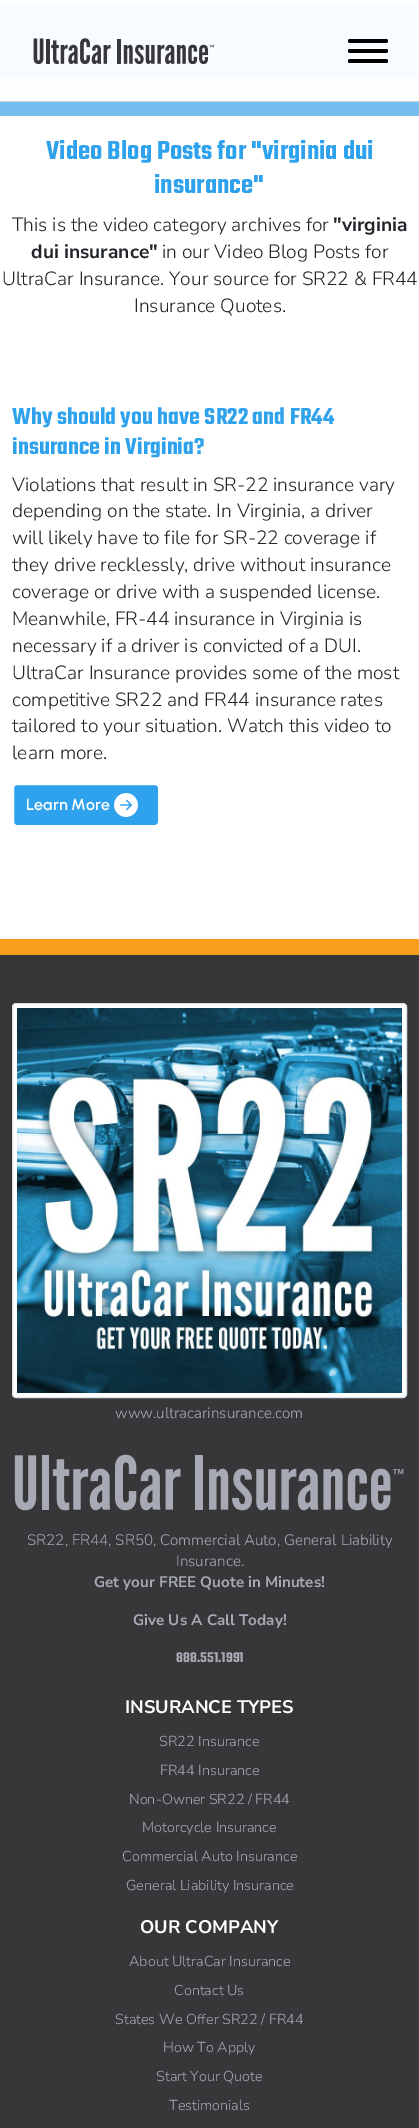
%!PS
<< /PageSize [419 2128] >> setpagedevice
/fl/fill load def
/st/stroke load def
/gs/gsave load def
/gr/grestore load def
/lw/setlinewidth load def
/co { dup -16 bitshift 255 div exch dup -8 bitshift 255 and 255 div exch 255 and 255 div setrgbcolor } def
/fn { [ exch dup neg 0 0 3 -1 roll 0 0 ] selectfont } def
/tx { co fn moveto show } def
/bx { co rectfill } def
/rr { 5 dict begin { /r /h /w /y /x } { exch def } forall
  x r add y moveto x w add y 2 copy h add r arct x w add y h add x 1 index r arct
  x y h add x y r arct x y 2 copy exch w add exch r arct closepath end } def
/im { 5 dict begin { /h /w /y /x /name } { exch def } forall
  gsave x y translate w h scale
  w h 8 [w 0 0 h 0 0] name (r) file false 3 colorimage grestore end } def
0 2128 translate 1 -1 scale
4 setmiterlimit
0 0 419 2128 16#FFFFFF bx
0 102 419 14 16#73BEEF bx
0 76 419 25 16#FBFDFF bx
0 3 419 73 16#F8FCFE bx
(media/1.raw) 33 38 182 27 im
16#000000 co
348 59 40 4 2 rr fl
348 39 40 4 2 rr fl
348 49 40 4 2 rr fl
0 101 419 1 16#CCD0D7 bx
16#2FA2ED co
13 784 146 42 4 rr gs fl gr
16#FFFFFF co
2 lw
st
(media/2.raw) 114 793 24 24 im
0 955 419 1173 16#37373A bx
0 939 419 16 16#F99E1C bx
16#FFFFFF co
12.5 1003.5 394 394 3.5 rr gs fl gr
16#DEE2E6 co
1 lw
st
(media/3.raw) 17 1008 385 385 im
(media/4.raw) 14 1454 390 57 im
(Video Blog Posts for "virginia dui) 46 159 /Teko-SemiBold 28.25 16#2FA2ED tx
(insurance") 154 193 /Teko-SemiBold 28.25 16#2FA2ED tx
(This is the video category archives for) 12 231 /NunitoSans-Light 19.2 16#212529 tx
("virginia) 333 231 /NunitoSans-Bold 19.2 16#212529 tx
(dui insurance") 31 258 /NunitoSans-Bold 19.2 16#212529 tx
(in our Video Blog Posts for) 162 258 /NunitoSans-Light 19.2 16#212529 tx
(UltraCar Insurance. Your source for SR22 & FR44) 2 285 /NunitoSans-Light 19.2 16#212529 tx
(Insurance Quotes.) 134 312 /NunitoSans-Light 19.2 16#212529 tx
(Why should you have SR22 and FR44) 12 424 /Teko-SemiBold 25 16#2FA2ED tx
(insurance in Virginia?) 12 454 /Teko-SemiBold 25 16#2FA2ED tx
(Violations that result in SR-22 insurance vary) 12 491 /NunitoSans-Light 19.2 16#212529 tx
(depending on the state. In Virginia, a driver) 12 517 /NunitoSans-Light 19.2 16#212529 tx
(will likely have to file for SR-22 coverage if) 12 544 /NunitoSans-Light 19.2 16#212529 tx
(they drive recklessly, drive without insurance) 12 571 /NunitoSans-Light 19.2 16#212529 tx
(coverage or drive with a suspended license.) 12 598 /NunitoSans-Light 19.2 16#212529 tx
(Meanwhile, FR-44 insurance in Virginia is) 12 625 /NunitoSans-Light 19.2 16#212529 tx
(necessary if a driver is convicted of a DUI.) 12 652 /NunitoSans-Light 19.2 16#212529 tx
(UltraCar Insurance provides some of the most) 12 679 /NunitoSans-Light 19.2 16#212529 tx
(competitive SR22 and FR44 insurance rates) 12 706 /NunitoSans-Light 19.2 16#212529 tx
(tailored to your situation. Watch this video to) 12 732 /NunitoSans-Light 19.2 16#212529 tx
(learn more.) 12 759 /NunitoSans-Light 19.2 16#212529 tx
(Learn More) 26 810 /Urbanist-SemiBold 16 16#FFFFFF tx
(www.ultracarinsurance.com) 115 1418 /NunitoSans-Light 15.2 16#A7AAB4 tx
(SR22, FR44, SR50, Commercial Auto, General Liability) 27 1545 /NunitoSans-Light 15.2 16#A7AAB4 tx
(Insurance.) 176 1566 /NunitoSans-Light 15.2 16#A7AAB4 tx
(Get your FREE Quote in Minutes!) 94 1587 /NunitoSans-Bold 15.2 16#A7AAB4 tx
(Give Us A Call Today!) 133 1625 /NunitoSans-Bold 15.2 16#A7AAB4 tx
(888.551.1991) 176 1662 /Teko-SemiBold 15.2 16#A7AAB4 tx
(INSURANCE TYPES) 125 1713 /NunitoSans-Bold 18.25 16#FFFFFF tx
(SR22 Insurance) 159 1746 /NunitoSans-Light 14.4 16#A7AAB4 tx
(FR44 Insurance) 160 1775 /NunitoSans-Light 14.4 16#A7AAB4 tx
(Non-Owner SR22 / FR44) 129 1804 /NunitoSans-Light 14.4 16#A7AAB4 tx
(Motorcycle Insurance) 142 1832 /NunitoSans-Light 14.4 16#A7AAB4 tx
(Commercial Auto Insurance) 122 1861 /NunitoSans-Light 14.4 16#A7AAB4 tx
(General Liability Insurance) 126 1890 /NunitoSans-Light 14.4 16#A7AAB4 tx
(OUR COMPANY) 140 1933 /NunitoSans-Bold 18.25 16#FFFFFF tx
(About UltraCar Insurance) 129 1966 /NunitoSans-Light 14.4 16#A7AAB4 tx
(Contact Us) 174 1995 /NunitoSans-Light 14.4 16#A7AAB4 tx
(States We Offer SR22 / FR44) 115 2024 /NunitoSans-Light 14.4 16#A7AAB4 tx
(How To Apply) 163 2052 /NunitoSans-Light 14.4 16#A7AAB4 tx
(Start Your Quote) 156 2081 /NunitoSans-Light 14.4 16#A7AAB4 tx
(Testimonials) 169 2110 /NunitoSans-Light 14.4 16#A7AAB4 tx
showpage
